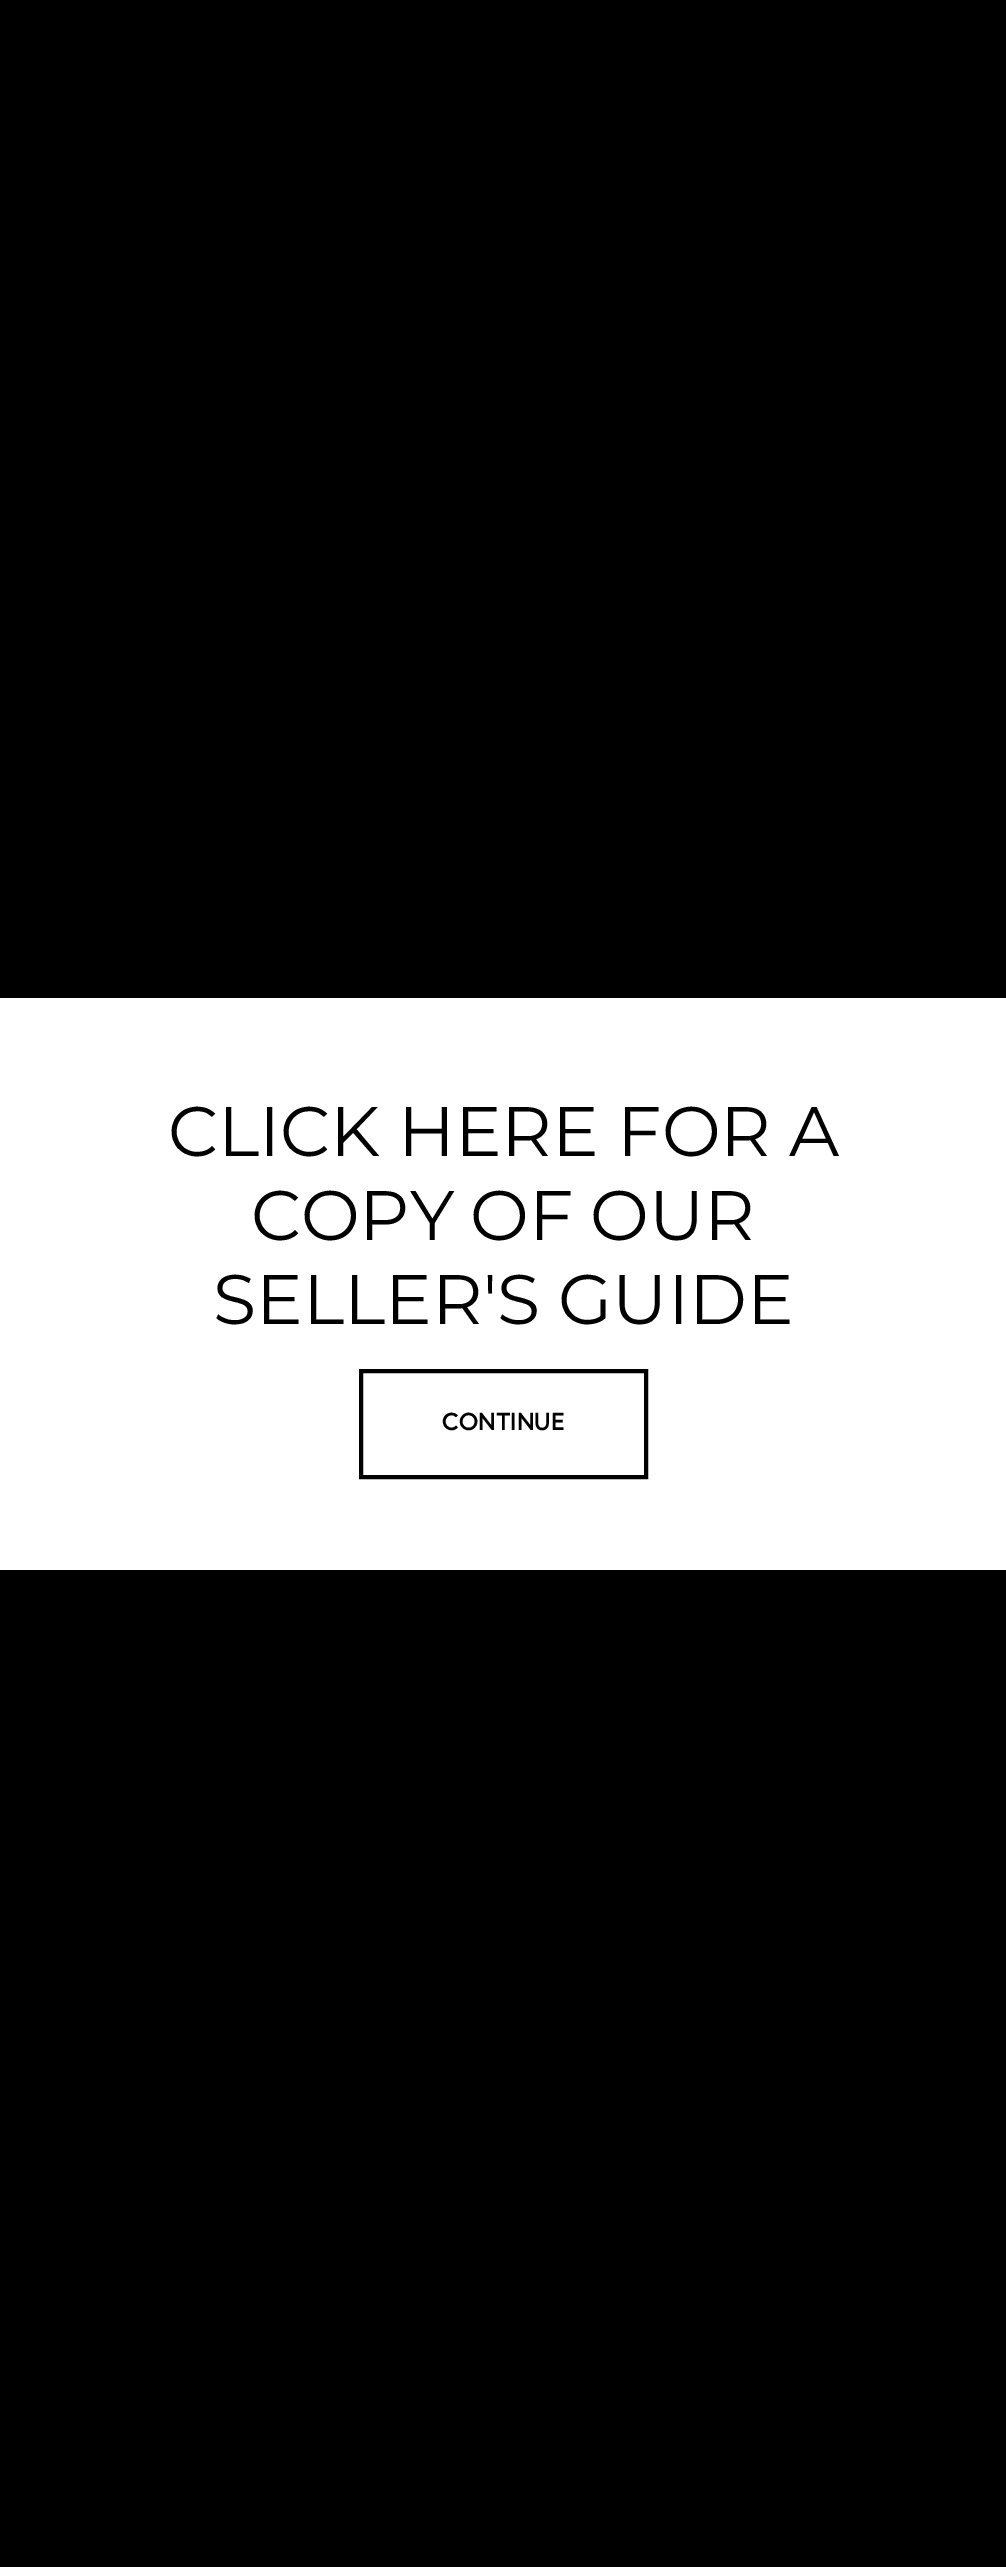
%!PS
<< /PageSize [1006 2567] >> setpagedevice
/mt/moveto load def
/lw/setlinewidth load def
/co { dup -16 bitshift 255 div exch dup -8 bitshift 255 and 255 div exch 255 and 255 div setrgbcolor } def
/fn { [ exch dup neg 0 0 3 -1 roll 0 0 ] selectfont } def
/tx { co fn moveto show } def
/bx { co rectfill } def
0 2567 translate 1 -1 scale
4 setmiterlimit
0 0 1006 2567 16#000000 bx
0 998 1006 572 16#FFFFFF bx
16#000000 co
4 lw
361 1371 285 106 rectstroke
(CLICK HERE FOR A) 168 1156 /Montserrat-Regular 70 16#000000 tx
251 1240 mt -2 0 32 (COPY OF OUR) widthshow
(SELLER'S GUIDE) 213 1324 /Montserrat-Regular 70 16#000000 tx
(CONTINUE) 442 1430 /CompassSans-Medium 24.5 16#000000 tx
showpage
